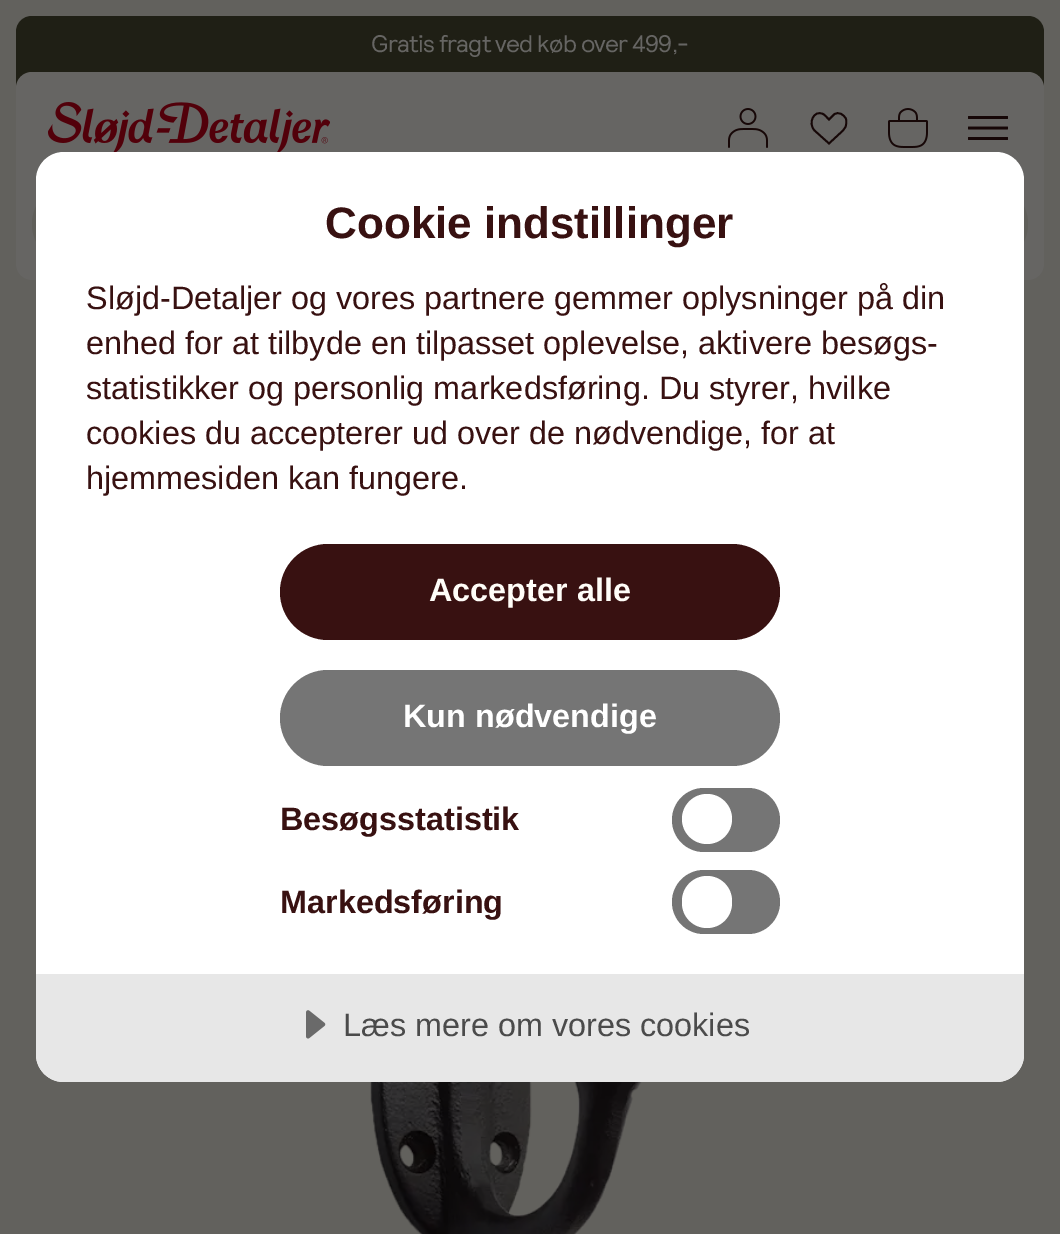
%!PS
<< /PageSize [1060 1234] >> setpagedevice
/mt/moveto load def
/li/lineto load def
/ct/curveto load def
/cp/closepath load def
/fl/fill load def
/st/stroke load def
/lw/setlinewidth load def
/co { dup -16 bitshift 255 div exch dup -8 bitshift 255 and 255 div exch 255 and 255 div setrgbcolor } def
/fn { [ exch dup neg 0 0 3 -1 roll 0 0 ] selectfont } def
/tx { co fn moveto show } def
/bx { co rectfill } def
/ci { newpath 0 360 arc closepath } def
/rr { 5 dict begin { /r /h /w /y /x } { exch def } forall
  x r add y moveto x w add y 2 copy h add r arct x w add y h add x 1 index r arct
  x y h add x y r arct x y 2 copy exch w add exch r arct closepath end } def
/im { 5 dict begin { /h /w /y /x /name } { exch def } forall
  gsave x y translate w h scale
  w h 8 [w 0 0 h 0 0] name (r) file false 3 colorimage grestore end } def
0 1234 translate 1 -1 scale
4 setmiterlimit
0 0 1060 1234 16#62615D bx
16#1F1F15 co
32 16 mt 1028 16 li 1037 16 1044 23 1044 32 ct 1044 88 li 16 88 li 16 32 li 16 23 23 16 32 16 ct cp fl
16#666563 co
16 72 1028 208 16 rr fl
(media/1.raw) 48 102 282 50 im
(media/2.raw) 728 108 40 40 im
16#160707 co
1.8 lw
814.5 130.5 mt 829 143.5 li 843 130.5 li 845.5 127 li 846.5 124.5 846.5 121.5 846 119 ct 844 114.5 838.5 111 834 114.5 ct 829 119.5 li 827.5 118 li 826 116.5 825 115 823 114 ct 814 109.5 807.5 123 814.5 130.5 ct cp st
(media/3.raw) 888 108 40 40 im
(media/4.raw) 968 116 40 24 im
16#605F5A co
32 184 996 80 40 rr fl
(media/5.raw) 370 1082 273 152 im
16#FFFFFF co
36 152 988 930 28 rr fl
16#381111 co
280 544 500 96 48 rr fl
16#757575 co
280 670 500 96 48 rr fl
672 788 108 64 32 rr fl
16#FFFFFF co
707 819 25 ci fl
16#757575 co
672 870 108 64 32 rr fl
16#FFFFFF co
682 876 50 52 25 rr fl
16#E7E7E7 co
36 974 mt 1024 974 li 1024 1054 li 1024 1069.5 1011.5 1082 996 1082 ct 64 1082 li 48.5 1082 36 1069.5 36 1054 ct cp fl
(media/6.raw) 306 1010 20 29 im
/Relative-Regular 24 fn
16#666563 co
371 52 mt -.75 0 (Gratis fragt ved køb over 499,-) ashow
(Cookie indstillinger) 325 238 /LiberationSans-Bold 44 16#381111 tx
(Sløjd-Detaljer og vores partnere gemmer oplysninger på din) 86 309 /LiberationSans-Regular 32.4 16#381111 tx
(enhed for at tilbyde en tilpasset oplevelse, aktivere besøgs-) 86 354 /LiberationSans-Regular 32.4 16#381111 tx
(statistikker og personlig markedsføring. Du styrer, hvilke) 86 399 /LiberationSans-Regular 32.4 16#381111 tx
(cookies du accepterer ud over de nødvendige, for at) 86 444 /LiberationSans-Regular 32.4 16#381111 tx
(hjemmesiden kan fungere.) 86 489 /LiberationSans-Regular 32.4 16#381111 tx
(Accepter alle) 429 601 /LiberationSans-Bold 32.4 16#FFFDF8 tx
(Kun nødvendige) 403 727 /LiberationSans-Bold 32.4 16#FFFFFF tx
(Besøgsstatistik) 280 830 /LiberationSans-Bold 32.4 16#381111 tx
(Markedsføring) 280 913 /LiberationSans-Bold 32.4 16#381111 tx
(Læs mere om vores cookies) 343 1036 /LiberationSans-Regular 32.4 16#4B4B4B tx
showpage
